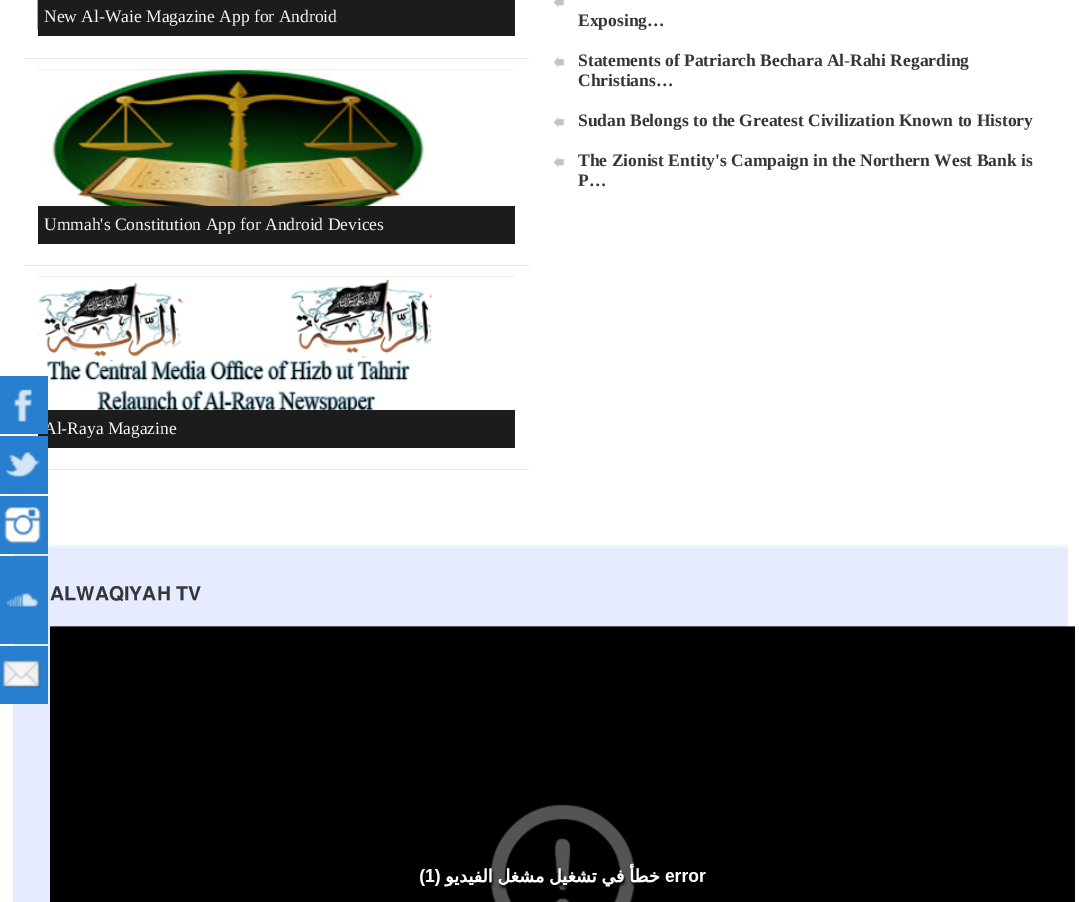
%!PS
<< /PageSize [1079 902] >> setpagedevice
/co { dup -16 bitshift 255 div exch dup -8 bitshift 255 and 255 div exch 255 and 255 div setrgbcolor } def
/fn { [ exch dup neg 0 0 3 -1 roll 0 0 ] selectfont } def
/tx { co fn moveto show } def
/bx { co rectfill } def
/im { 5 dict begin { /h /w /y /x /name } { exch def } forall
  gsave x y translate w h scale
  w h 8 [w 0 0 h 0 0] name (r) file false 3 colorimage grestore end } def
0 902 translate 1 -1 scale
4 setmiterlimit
0 0 1079 902 16#FFFFFF bx
25 58 504 1 16#E5E5E5 bx
(media/1.raw) 37 0 1 36 im
38 0 477 36 16#1C1C1C bx
25 265 504 1 16#E5E5E5 bx
38 69 477 1 16#EEEEEE bx
(media/2.raw) 47 70 381 136 im
38 206 477 38 16#1C1C1C bx
48 469 481 1 16#E5E5E5 bx
38 276 477 1 16#EEEEEE bx
(media/3.raw) 37 279 395 131 im
38 410 477 38 16#1C1C1C bx
(media/4.raw) 553 0 11 8 im
(media/5.raw) 553 56 11 12 im
(media/5.raw) 553 116 11 12 im
(media/5.raw) 553 156 11 12 im
13 548 1055 354 16#E6EBFF bx
0 496 48 58 16#297FCF bx
(media/8.raw) 4 507 37 37 im
0 556 48 88 16#297FCF bx
(media/9.raw) 7 593 32 14 im
0 646 48 58 16#297FCF bx
(media/10.raw) 2 660 39 29 im
48 545 1020 3 16#ECF7F8 bx
(media/11.raw) 50 626 1025 276 im
(New Al-Waie Magazine App for Android) 44 22 /LiberationSerif-Regular 17.5 16#F5F5F5 tx
(Ummah's Constitution App for Android Devices) 44 230 /LiberationSerif-Regular 17.5 16#F5F5F5 tx
(Al-Raya Magazine) 44 434 /LiberationSerif-Regular 17.5 16#F5F5F5 tx
(Exposing…) 578 26 /LiberationSerif-Bold 17.5 16#363636 tx
(Statements of Patriarch Bechara Al-Rahi Regarding) 578 66 /LiberationSerif-Bold 17.5 16#363636 tx
(Christians…) 578 86 /LiberationSerif-Bold 17.5 16#363636 tx
(Sudan Belongs to the Greatest Civilization Known to History) 578 126 /LiberationSerif-Bold 17.5 16#363636 tx
(The Zionist Entity's Campaign in the Northern West Bank is) 578 166 /LiberationSerif-Bold 17.5 16#363636 tx
(P…) 578 186 /LiberationSerif-Bold 17.5 16#363636 tx
0 376 48 58 16#297FCF bx
(media/6.raw) 14 389 18 33 im
0 436 48 58 16#297FCF bx
(media/7.raw) 5 452 35 25 im
(ALWAQIYAH TV) 50 602 /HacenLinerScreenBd-Regular 22.5 16#363636 tx
showpage
